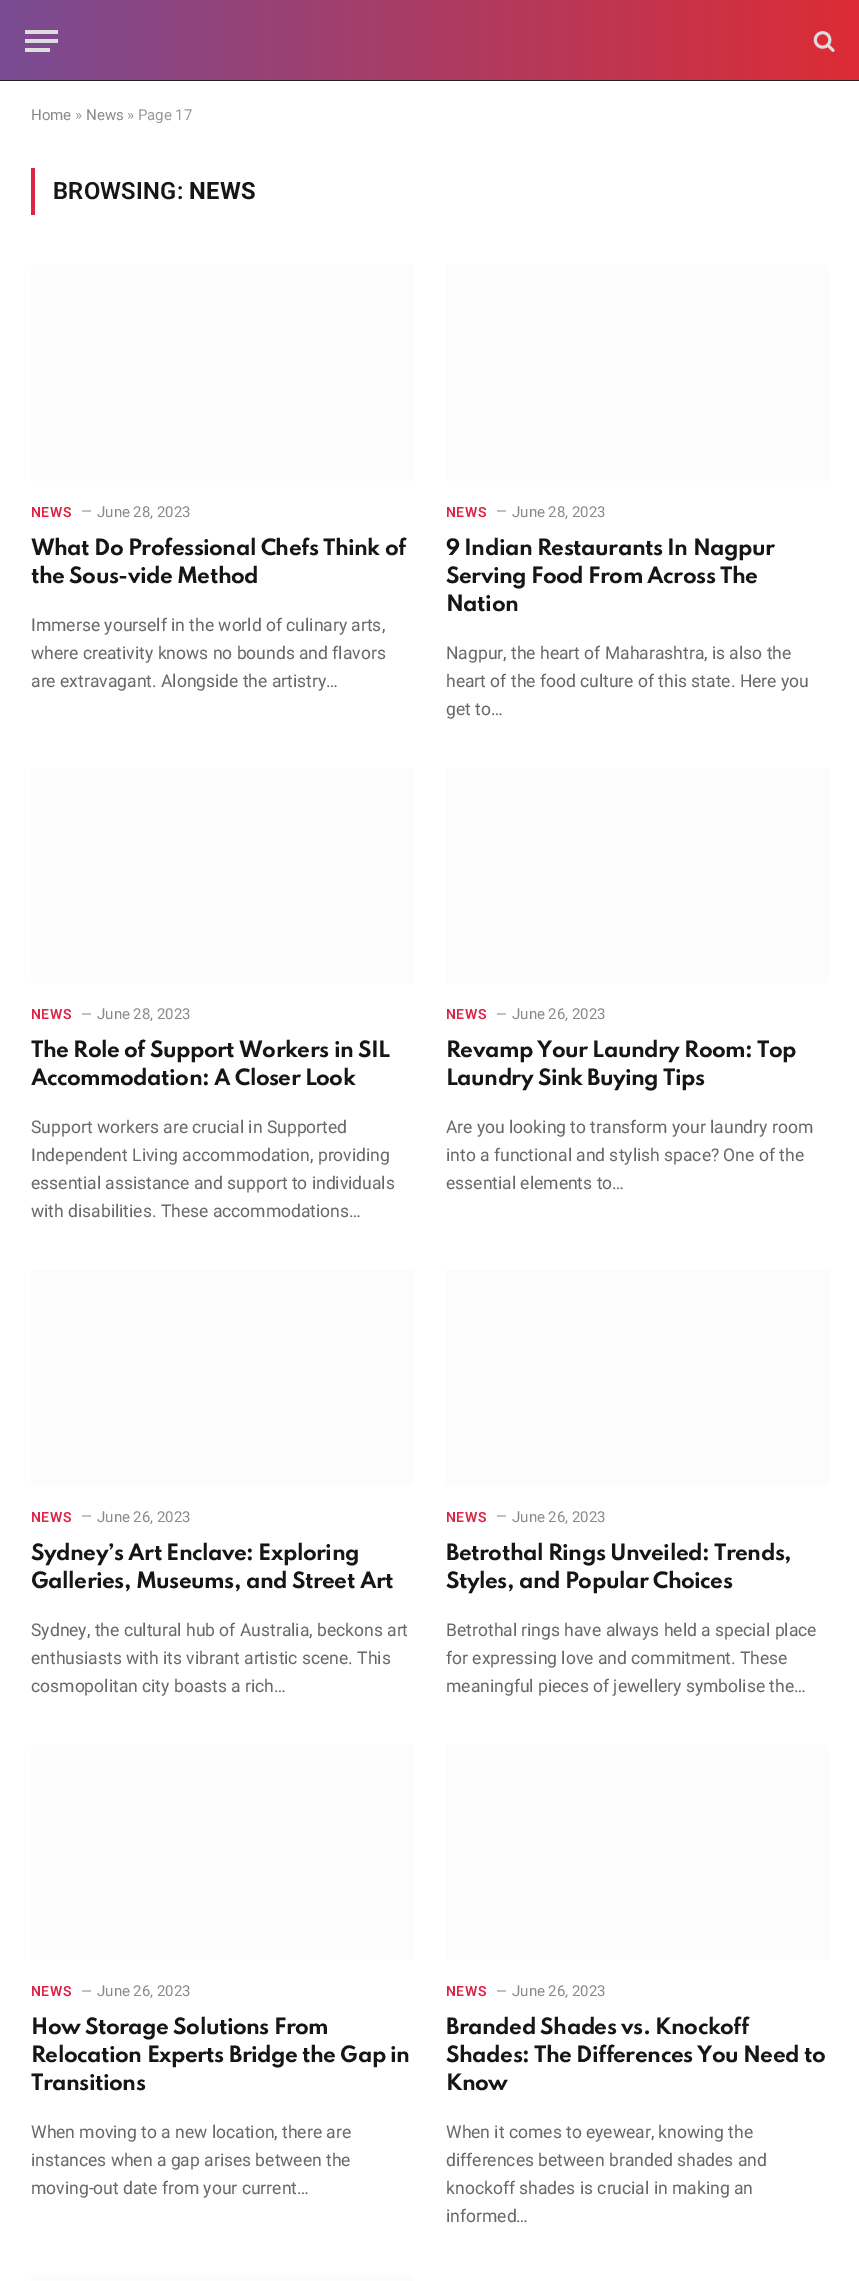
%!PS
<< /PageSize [859 2281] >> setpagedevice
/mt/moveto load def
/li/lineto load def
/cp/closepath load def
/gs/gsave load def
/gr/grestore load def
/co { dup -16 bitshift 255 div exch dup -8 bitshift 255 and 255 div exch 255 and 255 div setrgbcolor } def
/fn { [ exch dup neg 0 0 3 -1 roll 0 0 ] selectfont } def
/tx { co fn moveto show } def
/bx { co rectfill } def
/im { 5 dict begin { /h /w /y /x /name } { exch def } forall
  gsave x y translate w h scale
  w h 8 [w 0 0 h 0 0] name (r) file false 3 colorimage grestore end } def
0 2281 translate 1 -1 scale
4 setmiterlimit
0 0 859 2281 16#FFFFFF bx
gs 0 0 mt 859 0 li 859 80 li 0 80 li cp clip newpath
<< /ShadingType 2 /ColorSpace /DeviceRGB /Coords [0 40 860 40] /Extend [true true] /Function << /FunctionType 2 /Domain [0 1] /C0 [.475 .298 .576] /C1 [.867 .173 .208] /N 1 >> >> shfill gr
0 80 859 1 16#222222 bx
25 48 25 4 16#DDDDDD bx
25 30 33 4 16#DDDDDD bx
25 39 33 4 16#DDDDDD bx
(media/1.raw) 813 31 22 21 im
31 168 4 47 16#DC2446 bx
31 265 383 216 16#FCFCFC bx
446 265 383 216 16#FCFCFC bx
31 768 383 215 16#FCFCFC bx
446 768 383 215 16#FCFCFC bx
31 1270 383 215 16#FCFCFC bx
446 1270 383 215 16#FCFCFC bx
31 1745 383 215 16#FCFCFC bx
446 1745 383 215 16#FCFCFC bx
31 2275 383 6 16#FCFCFC bx
(Home) 31 120 /Roboto-Regular 15 16#8A8A8A tx
(») 75 120 /Roboto-Regular 15 16#999999 tx
(News) 86 120 /Roboto-Regular 15 16#8A8A8A tx
(» Page 17) 127 120 /Roboto-Regular 15 16#999999 tx
/Roboto-SemiBold 23.75 fn
16#161616 co
53 199 mt .25 0 (BROWSING:) ashow
/Roboto-Bold 23.75 fn
189 199 mt .25 0 (NEWS) ashow
/Roboto-SemiBold 14 fn
16#DC2446 co
31 517 mt .5 0 (NEWS) ashow
(—) 81 516 /Roboto-Regular 14 16#8A8A8A tx
(June 28, 2023) 97 517 /Roboto-Regular 15 16#8A8A8A tx
/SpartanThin-Bold 20 fn
16#161616 co
31 555 mt -.6 0 (What Do Professional Chefs Think of) ashow
31 583 mt -.6 0 (the Sous-vide Method) ashow
(Immerse yourself in the world of culinary arts,) 31 631 /Roboto-Regular 17.5 16#686868 tx
(where creativity knows no bounds and flavors) 31 659 /Roboto-Regular 17.5 16#686868 tx
(are extravagant. Alongside the artistry…) 31 687 /Roboto-Regular 17.5 16#686868 tx
/Roboto-SemiBold 14 fn
16#DC2446 co
446 517 mt .5 0 (NEWS) ashow
(—) 496 516 /Roboto-Regular 14 16#8A8A8A tx
(June 28, 2023) 512 517 /Roboto-Regular 15 16#8A8A8A tx
/SpartanThin-Bold 20 fn
16#161616 co
446 555 mt -.6 0 (9 Indian Restaurants In Nagpur) ashow
446 583 mt -.6 0 (Serving Food From Across The) ashow
446 611 mt -.6 0 (Nation) ashow
(Nagpur, the heart of Maharashtra, is also the) 446 659 /Roboto-Regular 17.5 16#686868 tx
(heart of the food culture of this state. Here you) 446 687 /Roboto-Regular 17.5 16#686868 tx
(get to…) 446 715 /Roboto-Regular 17.5 16#686868 tx
/Roboto-SemiBold 14 fn
16#DC2446 co
31 1019 mt .5 0 (NEWS) ashow
(—) 81 1019 /Roboto-Regular 14 16#8A8A8A tx
(June 28, 2023) 97 1019 /Roboto-Regular 15 16#8A8A8A tx
/SpartanThin-Bold 20 fn
16#161616 co
31 1057 mt -.6 0 (The Role of Support Workers in SIL) ashow
31 1085 mt -.6 0 (Accommodation: A Closer Look) ashow
(Support workers are crucial in Supported) 31 1133 /Roboto-Regular 17.5 16#686868 tx
(Independent Living accommodation, providing) 31 1161 /Roboto-Regular 17.5 16#686868 tx
(essential assistance and support to individuals) 31 1189 /Roboto-Regular 17.5 16#686868 tx
(with disabilities. These accommodations…) 31 1217 /Roboto-Regular 17.5 16#686868 tx
/Roboto-SemiBold 14 fn
16#DC2446 co
446 1019 mt .5 0 (NEWS) ashow
(—) 496 1019 /Roboto-Regular 14 16#8A8A8A tx
(June 26, 2023) 512 1019 /Roboto-Regular 15 16#8A8A8A tx
/SpartanThin-Bold 20 fn
16#161616 co
446 1057 mt -.6 0 (Revamp Your Laundry Room: Top) ashow
446 1085 mt -.6 0 (Laundry Sink Buying Tips) ashow
(Are you looking to transform your laundry room) 446 1133 /Roboto-Regular 17.5 16#686868 tx
(into a functional and stylish space? One of the) 446 1161 /Roboto-Regular 17.5 16#686868 tx
(essential elements to…) 446 1189 /Roboto-Regular 17.5 16#686868 tx
/Roboto-SemiBold 14 fn
16#DC2446 co
31 1522 mt .5 0 (NEWS) ashow
(—) 81 1521 /Roboto-Regular 14 16#8A8A8A tx
(June 26, 2023) 97 1522 /Roboto-Regular 15 16#8A8A8A tx
/SpartanThin-Bold 20 fn
16#161616 co
31 1560 mt -.6 0 (Sydney’s Art Enclave: Exploring) ashow
31 1588 mt -.6 0 (Galleries, Museums, and Street Art) ashow
(Sydney, the cultural hub of Australia, beckons art) 31 1636 /Roboto-Regular 17.5 16#686868 tx
(enthusiasts with its vibrant artistic scene. This) 31 1664 /Roboto-Regular 17.5 16#686868 tx
(cosmopolitan city boasts a rich…) 31 1692 /Roboto-Regular 17.5 16#686868 tx
/Roboto-SemiBold 14 fn
16#DC2446 co
446 1522 mt .5 0 (NEWS) ashow
(—) 496 1521 /Roboto-Regular 14 16#8A8A8A tx
(June 26, 2023) 512 1522 /Roboto-Regular 15 16#8A8A8A tx
/SpartanThin-Bold 20 fn
16#161616 co
446 1560 mt -.6 0 (Betrothal Rings Unveiled: Trends,) ashow
446 1588 mt -.6 0 (Styles, and Popular Choices) ashow
(Betrothal rings have always held a special place) 446 1636 /Roboto-Regular 17.5 16#686868 tx
(for expressing love and commitment. These) 446 1664 /Roboto-Regular 17.5 16#686868 tx
(meaningful pieces of jewellery symbolise the…) 446 1692 /Roboto-Regular 17.5 16#686868 tx
/Roboto-SemiBold 14 fn
16#DC2446 co
31 1996 mt .5 0 (NEWS) ashow
(—) 81 1996 /Roboto-Regular 14 16#8A8A8A tx
(June 26, 2023) 97 1996 /Roboto-Regular 15 16#8A8A8A tx
/SpartanThin-Bold 20 fn
16#161616 co
31 2034 mt -.6 0 (How Storage Solutions From) ashow
31 2062 mt -.6 0 (Relocation Experts Bridge the Gap in) ashow
31 2090 mt -.6 0 (Transitions) ashow
(When moving to a new location, there are) 31 2138 /Roboto-Regular 17.5 16#686868 tx
(instances when a gap arises between the) 31 2166 /Roboto-Regular 17.5 16#686868 tx
(moving-out date from your current…) 31 2194 /Roboto-Regular 17.5 16#686868 tx
/Roboto-SemiBold 14 fn
16#DC2446 co
446 1996 mt .5 0 (NEWS) ashow
(—) 496 1996 /Roboto-Regular 14 16#8A8A8A tx
(June 26, 2023) 512 1996 /Roboto-Regular 15 16#8A8A8A tx
/SpartanThin-Bold 20 fn
16#161616 co
446 2034 mt -.6 0 (Branded Shades vs. Knockoff) ashow
446 2062 mt -.6 0 (Shades: The Differences You Need to) ashow
446 2090 mt -.6 0 (Know) ashow
(When it comes to eyewear, knowing the) 446 2138 /Roboto-Regular 17.5 16#686868 tx
(differences between branded shades and) 446 2166 /Roboto-Regular 17.5 16#686868 tx
(knockoff shades is crucial in making an) 446 2194 /Roboto-Regular 17.5 16#686868 tx
(informed…) 446 2222 /Roboto-Regular 17.5 16#686868 tx
showpage
